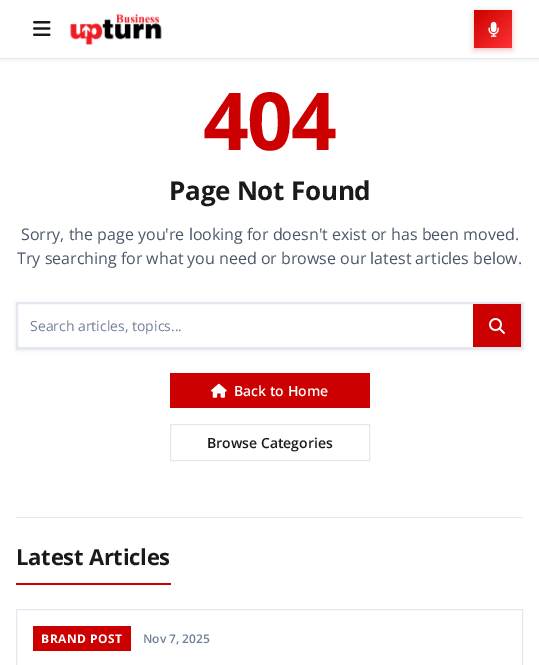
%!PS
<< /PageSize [539 665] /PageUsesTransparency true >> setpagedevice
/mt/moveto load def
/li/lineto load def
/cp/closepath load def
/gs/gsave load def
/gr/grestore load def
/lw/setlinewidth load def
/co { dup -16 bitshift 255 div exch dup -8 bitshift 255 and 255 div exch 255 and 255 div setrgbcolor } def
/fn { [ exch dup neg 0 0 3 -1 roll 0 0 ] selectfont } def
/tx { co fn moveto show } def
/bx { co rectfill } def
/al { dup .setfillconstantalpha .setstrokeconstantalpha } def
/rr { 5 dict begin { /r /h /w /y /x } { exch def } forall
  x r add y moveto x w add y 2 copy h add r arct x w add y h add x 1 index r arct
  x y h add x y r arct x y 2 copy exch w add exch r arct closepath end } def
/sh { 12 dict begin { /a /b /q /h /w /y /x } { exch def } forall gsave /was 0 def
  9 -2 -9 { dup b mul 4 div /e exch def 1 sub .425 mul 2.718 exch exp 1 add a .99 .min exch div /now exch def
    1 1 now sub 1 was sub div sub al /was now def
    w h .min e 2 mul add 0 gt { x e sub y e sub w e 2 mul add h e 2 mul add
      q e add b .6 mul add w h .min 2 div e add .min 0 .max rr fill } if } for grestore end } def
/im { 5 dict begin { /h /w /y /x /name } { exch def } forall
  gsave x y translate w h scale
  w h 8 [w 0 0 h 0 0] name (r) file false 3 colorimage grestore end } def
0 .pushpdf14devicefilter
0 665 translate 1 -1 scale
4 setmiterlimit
0 0 539 665 16#FFFFFF bx
gs
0 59 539 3 rectclip
16#000000 co
0 2 539 59 0 3 .06 sh
gr
0 58 539 1 16#E2E8F0 bx
(media/1.raw) 33 21 18 15 im
(media/2.raw) 69 13 93 33 im
16#CC0000 co
474 12 38 38 0 3 .25 sh
gs 474 10 mt 512 10 li 512 48 li 474 48 li cp clip newpath
<< /ShadingType 2 /ColorSpace /DeviceRGB /Coords [474 10 512 48] /Extend [true true] /Function << /FunctionType 2 /Domain [0 1] /C0 [.8 0 0] /C1 [1 .2 .2] /N 1 >> >> shfill gr
(media/3.raw) 488 21 11 16 im
gs
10 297 mt 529 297 li 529 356 li 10 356 li cp 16 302 mt 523 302 li 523 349 li 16 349 li cp eoclip newpath
16#000000 co
16 303 507 47 0 1.5 .1 sh
gr
16#E2E8F0 co
2 lw
17 303 505 45 rectstroke
473 304 48 43 16#CC0000 bx
(media/4.raw) 489 318 16 16 im
170 373 200 35 16#CC0000 bx
(media/5.raw) 211 383 16 15 im
16#E2E8F0 co
1 lw
170.5 424.5 199 36 rectstroke
16 517 507 1 16#E2E8F0 bx
16 583 155 2 16#CC0000 bx
16#E2E8F0 co
16.5 609.5 506 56 rectstroke
33 626 98 25 16#CC0000 bx
/OpenSans-Bold 80 fn
203 150 mt -1.5 0 (404) ashow
/OpenSans-Bold 26 fn
16#1A1A1A co
169 200 mt -.25 0 (Page Not Found) ashow
(Sorry, the page you're looking for doesn't exist or has been moved.) 21 240 /OpenSans-Regular 16 16#4A5568 tx
(Try searching for what you need or browse our latest articles below.) 17 264 /OpenSans-Regular 16 16#4A5568 tx
(Search articles, topics...) 30 331 /OpenSans-Regular 14 16#718096 tx
(Back to Home) 234 396 /OpenSans-SemiBold 14 16#FFFFFF tx
(Browse Categories) 207 448 /OpenSans-SemiBold 14 16#1A1A1A tx
/OpenSans-Bold 22 fn
16 565 mt -.25 0 (Latest Articles) ashow
/OpenSans-Bold 12 fn
16#FFFFFF co
41 643 mt .5 0 (BRAND POST) ashow
(Nov 7, 2025) 143 643 /OpenSans-SemiBold 12 16#718096 tx
.poppdf14devicefilter showpage
